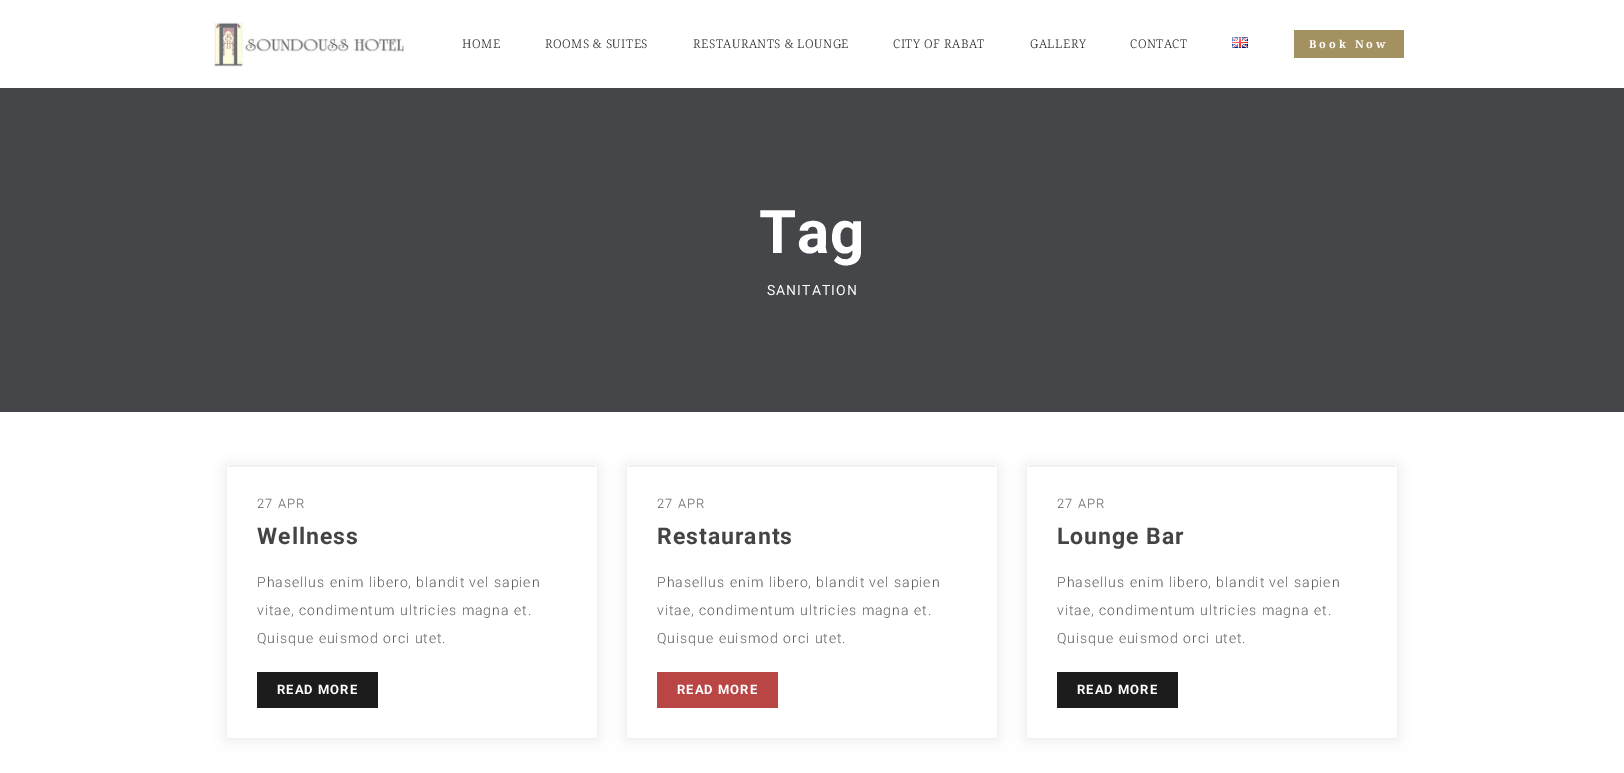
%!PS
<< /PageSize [1624 773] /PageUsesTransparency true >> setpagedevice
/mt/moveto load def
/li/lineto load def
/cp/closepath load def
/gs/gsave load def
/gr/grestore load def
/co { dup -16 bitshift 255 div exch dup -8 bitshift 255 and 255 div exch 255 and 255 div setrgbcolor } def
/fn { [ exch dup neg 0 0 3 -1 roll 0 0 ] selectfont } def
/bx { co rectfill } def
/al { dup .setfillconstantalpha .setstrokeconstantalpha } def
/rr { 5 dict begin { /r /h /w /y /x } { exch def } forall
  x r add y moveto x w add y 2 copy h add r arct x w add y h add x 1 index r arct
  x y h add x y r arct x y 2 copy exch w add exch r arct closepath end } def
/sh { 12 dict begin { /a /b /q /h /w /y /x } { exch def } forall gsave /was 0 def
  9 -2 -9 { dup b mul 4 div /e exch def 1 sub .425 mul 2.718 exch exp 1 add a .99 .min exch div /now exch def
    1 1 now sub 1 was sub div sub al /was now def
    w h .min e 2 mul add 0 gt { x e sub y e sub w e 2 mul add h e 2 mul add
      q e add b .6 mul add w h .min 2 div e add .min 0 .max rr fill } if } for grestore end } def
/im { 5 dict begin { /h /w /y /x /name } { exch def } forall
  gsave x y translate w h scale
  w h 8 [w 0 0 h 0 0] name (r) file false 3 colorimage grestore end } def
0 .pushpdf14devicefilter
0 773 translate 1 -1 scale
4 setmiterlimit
0 0 1624 773 16#FFFFFF bx
(media/1.raw) 214 22 190 45 im
(media/2.raw) 1232 37 16 11 im
1294 30 110 28 16#A39161 bx
0 88 1624 324 16#444649 bx
gs
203 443 mt 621 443 li 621 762 li 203 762 li cp 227 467 mt 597 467 li 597 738 li 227 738 li cp eoclip newpath
16#000000 co
227 467 370 271 0 7.5 .1 sh
gr
257 672 121 36 16#1C1C1C bx
gs
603 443 mt 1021 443 li 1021 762 li 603 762 li cp 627 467 mt 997 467 li 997 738 li 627 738 li cp eoclip newpath
16#000000 co
627 467 370 271 0 7.5 .1 sh
gr
657 672 121 36 16#B94545 bx
gs
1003 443 mt 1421 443 li 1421 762 li 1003 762 li cp 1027 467 mt 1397 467 li 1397 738 li 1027 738 li cp eoclip newpath
16#000000 co
1027 467 370 271 0 7.5 .1 sh
gr
1057 672 121 36 16#1C1C1C bx
/NotoSerif-Light 12 fn
462 48 mt .5 0 (HOME) ashow
545 48 mt .5 0 (ROOMS & SUITES) ashow
693 48 mt .5 0 (RESTAURANTS & LOUNGE) ashow
893 48 mt .5 0 (CITY OF RABAT) ashow
1030 48 mt .5 0 (GALLERY) ashow
1130 48 mt .5 0 (CONTACT) ashow
/NotoSerif-Bold 11 fn
16#FFFFFF co
1309 48 mt 3 0 (Book Now) ashow
/Roboto-Bold 60 fn
759 253 mt 1 0 (Tag) ashow
/Roboto-Regular 14 fn
767 295 mt 1 0 (SANITATION) ashow
/Roboto-Light 13 fn
16#5C5C5C co
257 508 mt 1 0 (27 APR) ashow
/Roboto-Bold 23 fn
16#444444 co
257 544 mt 1 0 (Wellness) ashow
/Roboto-Light 14 fn
16#5C5C5C co
257 587 mt 1 0 (Phasellus enim libero, blandit vel sapien) ashow
257 615 mt 1 0 (vitae, condimentum ultricies magna et.) ashow
257 643 mt 1 0 (Quisque euismod orci utet.) ashow
/Roboto-Bold 13 fn
16#FFFFFF co
277 694 mt 1 0 (READ MORE) ashow
/Roboto-Light 13 fn
16#5C5C5C co
657 508 mt 1 0 (27 APR) ashow
/Roboto-Bold 23 fn
16#444444 co
657 544 mt 1 0 (Restaurants) ashow
/Roboto-Light 14 fn
16#5C5C5C co
657 587 mt 1 0 (Phasellus enim libero, blandit vel sapien) ashow
657 615 mt 1 0 (vitae, condimentum ultricies magna et.) ashow
657 643 mt 1 0 (Quisque euismod orci utet.) ashow
/Roboto-Bold 13 fn
16#FFFFFF co
677 694 mt 1 0 (READ MORE) ashow
/Roboto-Light 13 fn
16#5C5C5C co
1057 508 mt 1 0 (27 APR) ashow
/Roboto-Bold 23 fn
16#444444 co
1057 544 mt 1 0 (Lounge Bar) ashow
/Roboto-Light 14 fn
16#5C5C5C co
1057 587 mt 1 0 (Phasellus enim libero, blandit vel sapien) ashow
1057 615 mt 1 0 (vitae, condimentum ultricies magna et.) ashow
1057 643 mt 1 0 (Quisque euismod orci utet.) ashow
/Roboto-Bold 13 fn
16#FFFFFF co
1077 694 mt 1 0 (READ MORE) ashow
.poppdf14devicefilter showpage
